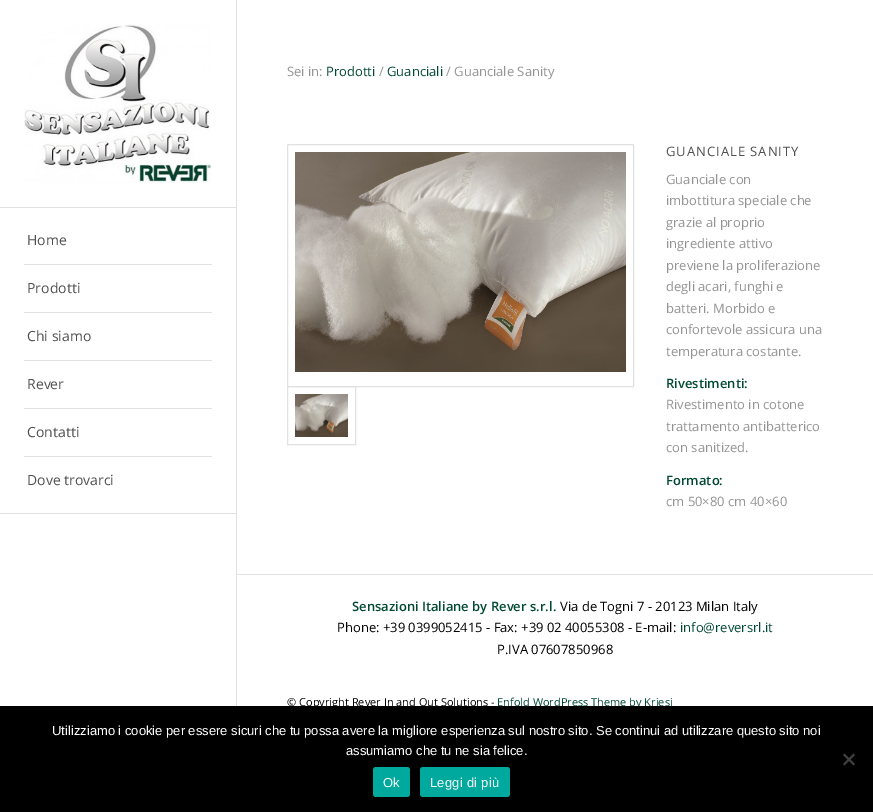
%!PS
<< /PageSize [873 812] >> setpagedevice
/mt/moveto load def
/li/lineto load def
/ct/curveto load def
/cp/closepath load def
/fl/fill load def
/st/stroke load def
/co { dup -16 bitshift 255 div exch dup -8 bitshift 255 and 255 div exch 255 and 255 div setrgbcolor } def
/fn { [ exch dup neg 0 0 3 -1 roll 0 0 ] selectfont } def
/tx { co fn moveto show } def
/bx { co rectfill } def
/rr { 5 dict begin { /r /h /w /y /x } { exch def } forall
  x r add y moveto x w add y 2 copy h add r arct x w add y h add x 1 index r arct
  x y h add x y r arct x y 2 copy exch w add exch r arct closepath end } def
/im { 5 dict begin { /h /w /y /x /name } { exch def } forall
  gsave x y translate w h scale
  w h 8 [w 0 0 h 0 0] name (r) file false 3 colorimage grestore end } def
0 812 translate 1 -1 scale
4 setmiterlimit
0 0 873 812 16#FFFFFF bx
0 513 236 1 16#E1E1E1 bx
0 207 236 1 16#E1E1E1 bx
(media/1.raw) 24 24 188 159 im
24 264 188 1 16#E1E1E1 bx
24 312 188 1 16#E1E1E1 bx
24 360 188 1 16#E1E1E1 bx
24 408 188 1 16#E1E1E1 bx
24 456 188 1 16#E1E1E1 bx
236 0 1 706 16#E1E1E1 bx
289 144.5 mt 632 144.5 li 633 144.5 633.5 145 633.5 146 ct 633.5 386.5 li 287.5 386.5 li 287.5 146 li 287.5 145 288 144.5 289 144.5 ct cp st
(media/2.raw) 295 152 331 220 im
287.5 386.5 68 58 rectstroke
(media/3.raw) 295 394 53 43 im
237 574 636 1 16#E1E1E1 bx
(Home) 27 245 /OpenSans-Regular 14 16#505050 tx
(Prodotti) 27 293 /OpenSans-Regular 14 16#505050 tx
(Chi siamo) 27 341 /OpenSans-Regular 14 16#505050 tx
(Rever) 27 389 /OpenSans-Regular 14 16#505050 tx
(Contatti) 27 437 /OpenSans-Regular 14 16#505050 tx
(Dove trovarci) 27 485 /OpenSans-Regular 14 16#505050 tx
(Sei in:) 287 76 /OpenSans-Regular 13 16#949494 tx
(Prodotti) 326 76 /OpenSans-Regular 13 16#004932 tx
(/) 379 76 /OpenSans-Regular 13 16#949494 tx
(Guanciali) 387 76 /OpenSans-Regular 13 16#004932 tx
(/ Guanciale Sanity) 446 76 /OpenSans-Regular 13 16#949494 tx
16#505050 co
666 156 mt 1 0 (GUANCIALE SANITY) ashow
(Guanciale con) 666 184 /OpenSans-Regular 13 16#949494 tx
(imbottitura speciale che) 666 205 /OpenSans-Regular 13 16#949494 tx
(grazie al proprio) 666 227 /OpenSans-Regular 13 16#949494 tx
(ingrediente attivo) 666 248 /OpenSans-Regular 13 16#949494 tx
(previene la proliferazione) 666 270 /OpenSans-Regular 13 16#949494 tx
(degli acari, funghi e) 666 291 /OpenSans-Regular 13 16#949494 tx
(batteri. Morbido e) 666 313 /OpenSans-Regular 13 16#949494 tx
(confortevole assicura una) 666 334 /OpenSans-Regular 13 16#949494 tx
(temperatura costante.) 666 356 /OpenSans-Regular 13 16#949494 tx
(Rivestimenti:) 666 388 /OpenSans-SemiBold 13 16#004932 tx
(Rivestimento in cotone) 666 409 /OpenSans-Regular 13 16#949494 tx
(trattamento antibatterico) 666 431 /OpenSans-Regular 13 16#949494 tx
(con sanitized.) 666 452 /OpenSans-Regular 13 16#949494 tx
(Formato:) 666 485 /OpenSans-SemiBold 13 16#004932 tx
(cm 50×80 cm 40×60) 666 506 /OpenSans-Regular 13 16#949494 tx
(Sensazioni Italiane by Rever s.r.l.) 352 611 /OpenSans-SemiBold 13 16#004932 tx
(Via de Togni 7 - 20123 Milan Italy) 560 611 /OpenSans-Regular 13 16#000000 tx
(Phone: +39 0399052415 - Fax: +39 02 40055308 - E-mail:) 337 632 /OpenSans-Regular 13 16#000000 tx
(info@reversrl.it) 680 632 /OpenSans-Regular 13 16#004932 tx
(P.IVA 07607850968) 497 654 /OpenSans-Regular 13 16#000000 tx
(© Copyright Rever In and Out Solutions -) 287 706 /OpenSans-Regular 11 16#000000 tx
(Enfold WordPress Theme by Kriesi) 497 706 /OpenSans-Regular 11 16#004932 tx
0 706 873 106 16#000000 bx
(Utilizziamo i cookie per essere sicuri che tu possa avere la migliore esperienza sul nostro sito. Se continui ad utilizzare questo sito noi) 52 735 /LiberationSans-Regular 13 16#FFFFFF tx
(assumiamo che tu ne sia felice.) 346 755 /LiberationSans-Regular 13 16#FFFFFF tx
16#404040 co
853.5 753.5 mt 855 755 li 844.5 765.5 li 843 764 li cp fl
843 755 mt 844.5 753.5 li 855 764 li 853.5 765.5 li cp fl
16#00A99D co
373 767 37 30 3 rr fl
16#FFFFFF co
383 787 mt .25 0 (Ok) ashow
16#00A99D co
420 767 90 30 3 rr fl
16#FFFFFF co
430 787 mt .25 0 (Leggi di più) ashow
showpage
